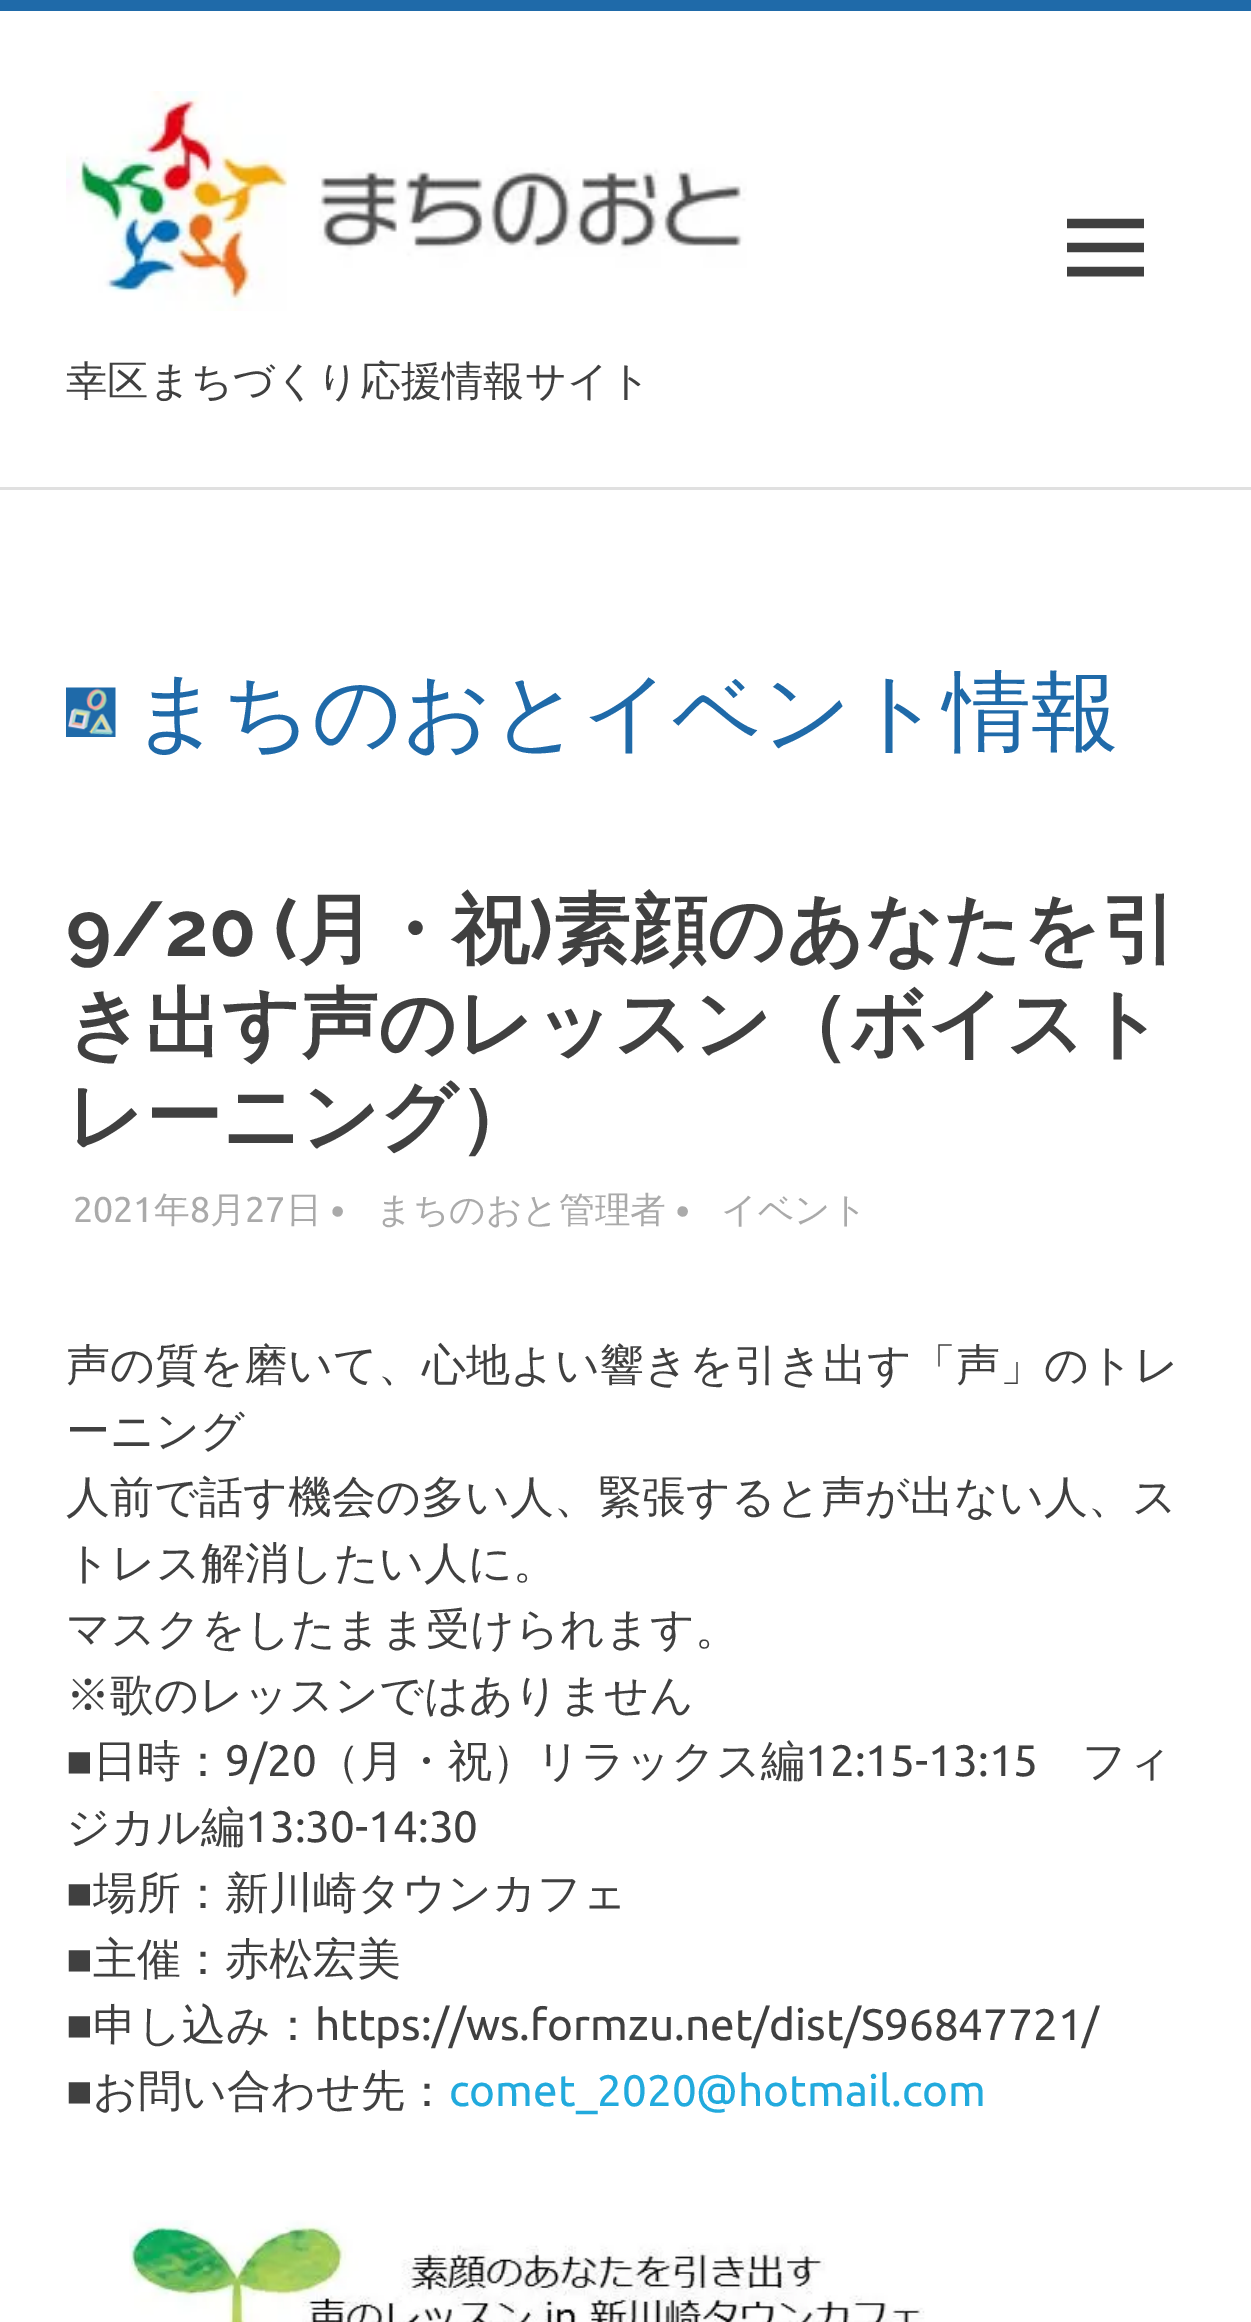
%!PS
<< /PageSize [1251 2322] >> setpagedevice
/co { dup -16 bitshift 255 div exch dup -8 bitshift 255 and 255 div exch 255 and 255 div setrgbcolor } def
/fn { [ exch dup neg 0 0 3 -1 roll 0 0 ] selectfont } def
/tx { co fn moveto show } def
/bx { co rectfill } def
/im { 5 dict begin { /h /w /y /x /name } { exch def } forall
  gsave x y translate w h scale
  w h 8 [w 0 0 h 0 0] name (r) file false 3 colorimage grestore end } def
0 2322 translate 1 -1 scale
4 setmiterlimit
0 0 1251 2322 16#FFFFFF bx
0 0 1251 11 16#1F6AA9 bx
0 487 1251 3 16#E0E0E0 bx
(media/1.raw) 1067 218 77 59 im
(media/2.raw) 66 91 681 220 im
(media/3.raw) 66 687 50 50 im
(media/4.raw) 129 2220 796 102 im
(幸区まちづくり応援情報サイト) 66 395 /WenQuanYiZenHei-Medium 41.25 16#404040 tx
(まちのおとイベント情報) 132 742 /WenQuanYiZenHei-Medium 88 16#1F6AA9 tx
(9/20 \() 66 956 /Raleway-Bold 77 16#404040 tx
(月・祝) 298 956 /WenQuanYiZenHei-Bold 77 16#404040 tx
(\)) 529 956 /Raleway-Bold 77 16#404040 tx
(素顔のあなたを引) 553 956 /WenQuanYiZenHei-Bold 77 16#404040 tx
(き出す声のレッスン（ボイスト) 66 1050 /WenQuanYiZenHei-Bold 77 16#404040 tx
(レーニング）) 66 1143 /WenQuanYiZenHei-Bold 77 16#404040 tx
(2021) 73 1222 /Ubuntu-Regular 35.75 16#AAAAAA tx
(年) 154 1222 /WenQuanYiZenHei-Medium 35.75 16#AAAAAA tx
(8) 190 1222 /Ubuntu-Regular 35.75 16#AAAAAA tx
(月) 210 1222 /WenQuanYiZenHei-Medium 35.75 16#AAAAAA tx
(27) 245 1222 /Ubuntu-Regular 35.75 16#AAAAAA tx
(日) 286 1222 /WenQuanYiZenHei-Medium 35.75 16#AAAAAA tx
(•) 330 1226 /LiberationSerif-Regular 44 16#AAAAAA tx
(まちのおと管理者) 376 1222 /WenQuanYiZenHei-Medium 35.75 16#AAAAAA tx
(•) 675 1226 /LiberationSerif-Regular 44 16#AAAAAA tx
(イベント) 721 1222 /WenQuanYiZenHei-Medium 35.75 16#AAAAAA tx
(声の質を磨いて、心地よい響きを引き出す「声」のトレ) 66 1380 /WenQuanYiZenHei-Medium 44 16#404040 tx
(ーニング) 66 1446 /WenQuanYiZenHei-Medium 44 16#404040 tx
(人前で話す機会の多い人、緊張すると声が出ない人、ス) 66 1512 /WenQuanYiZenHei-Medium 44 16#404040 tx
(トレス解消したい人に。) 66 1578 /WenQuanYiZenHei-Medium 44 16#404040 tx
(マスクをしたまま受けられます。) 66 1644 /WenQuanYiZenHei-Medium 44 16#404040 tx
(※歌のレッスンではありません) 66 1710 /WenQuanYiZenHei-Medium 44 16#404040 tx
(■) 66 1776 /LiberationSans-Regular 44 16#404040 tx
(日時：) 93 1776 /WenQuanYiZenHei-Medium 44 16#404040 tx
(9/20) 225 1776 /Ubuntu-Regular 44 16#404040 tx
(（月・祝）リラックス編) 316 1776 /WenQuanYiZenHei-Medium 44 16#404040 tx
(12:15-13:15) 805 1776 /Ubuntu-Regular 44 16#404040 tx
(フィ) 1082 1776 /WenQuanYiZenHei-Medium 44 16#404040 tx
(ジカル編) 66 1842 /WenQuanYiZenHei-Medium 44 16#404040 tx
(13:30-14:30) 245 1842 /Ubuntu-Regular 44 16#404040 tx
(■) 66 1908 /LiberationSans-Regular 44 16#404040 tx
(場所：新川崎タウンカフェ) 93 1908 /WenQuanYiZenHei-Medium 44 16#404040 tx
(■) 66 1974 /LiberationSans-Regular 44 16#404040 tx
(主催：赤松宏美) 93 1974 /WenQuanYiZenHei-Medium 44 16#404040 tx
(■) 66 2040 /LiberationSans-Regular 44 16#404040 tx
(申し込み：) 93 2040 /WenQuanYiZenHei-Medium 44 16#404040 tx
(https://ws.formzu.net/dist/S96847721/) 315 2040 /Ubuntu-Regular 44 16#404040 tx
(■) 66 2106 /LiberationSans-Regular 44 16#404040 tx
(お問い合わせ先：) 93 2106 /WenQuanYiZenHei-Medium 44 16#404040 tx
(comet_2020@hotmail.com) 449 2106 /Ubuntu-Regular 44 16#22AADD tx
showpage
